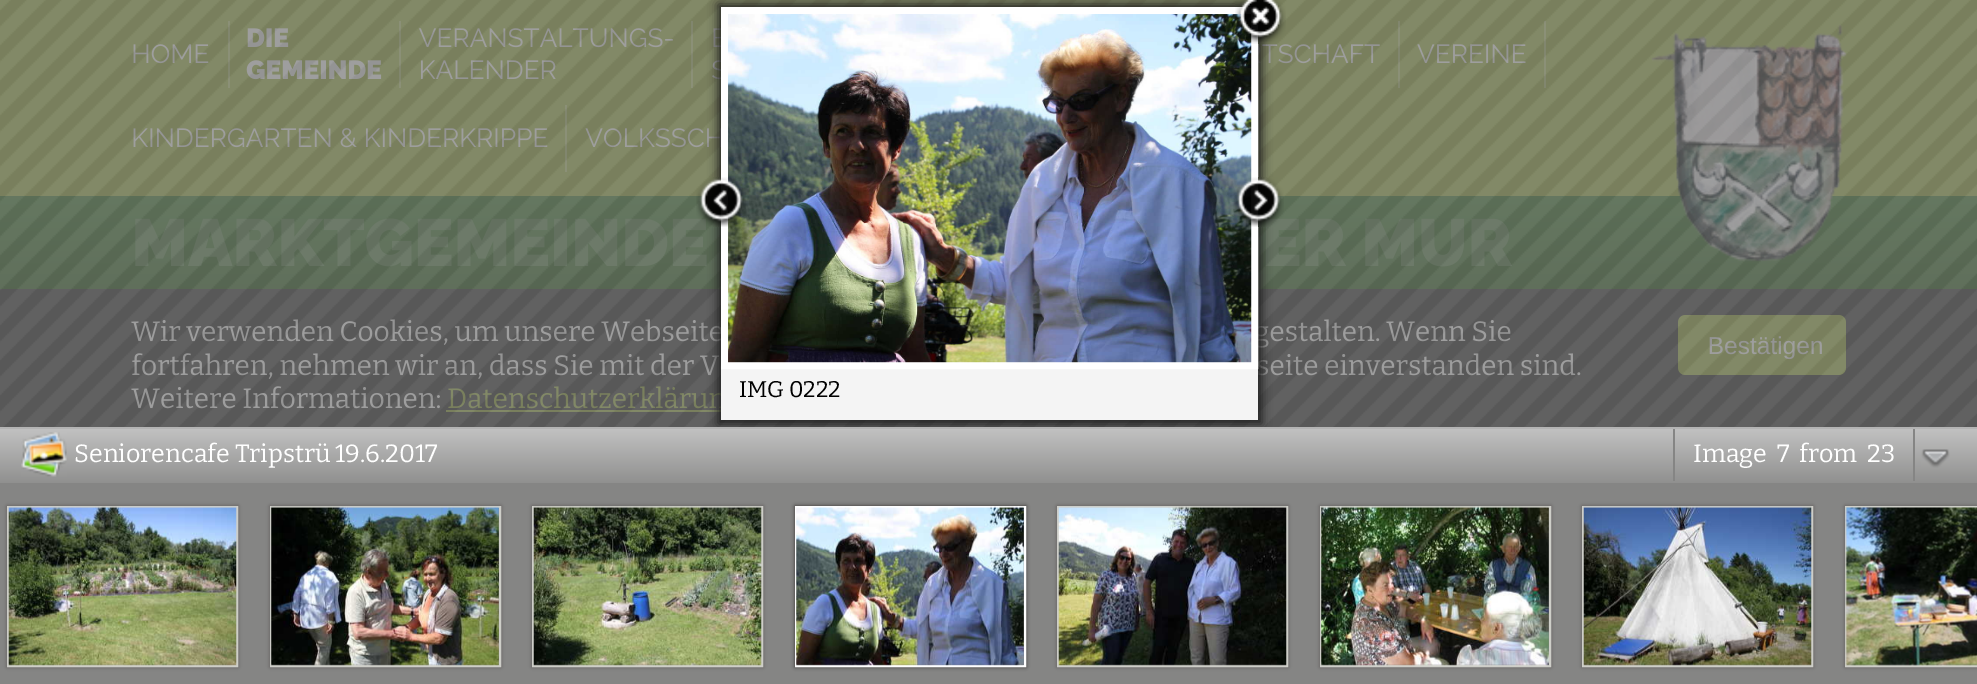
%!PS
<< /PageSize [1977 684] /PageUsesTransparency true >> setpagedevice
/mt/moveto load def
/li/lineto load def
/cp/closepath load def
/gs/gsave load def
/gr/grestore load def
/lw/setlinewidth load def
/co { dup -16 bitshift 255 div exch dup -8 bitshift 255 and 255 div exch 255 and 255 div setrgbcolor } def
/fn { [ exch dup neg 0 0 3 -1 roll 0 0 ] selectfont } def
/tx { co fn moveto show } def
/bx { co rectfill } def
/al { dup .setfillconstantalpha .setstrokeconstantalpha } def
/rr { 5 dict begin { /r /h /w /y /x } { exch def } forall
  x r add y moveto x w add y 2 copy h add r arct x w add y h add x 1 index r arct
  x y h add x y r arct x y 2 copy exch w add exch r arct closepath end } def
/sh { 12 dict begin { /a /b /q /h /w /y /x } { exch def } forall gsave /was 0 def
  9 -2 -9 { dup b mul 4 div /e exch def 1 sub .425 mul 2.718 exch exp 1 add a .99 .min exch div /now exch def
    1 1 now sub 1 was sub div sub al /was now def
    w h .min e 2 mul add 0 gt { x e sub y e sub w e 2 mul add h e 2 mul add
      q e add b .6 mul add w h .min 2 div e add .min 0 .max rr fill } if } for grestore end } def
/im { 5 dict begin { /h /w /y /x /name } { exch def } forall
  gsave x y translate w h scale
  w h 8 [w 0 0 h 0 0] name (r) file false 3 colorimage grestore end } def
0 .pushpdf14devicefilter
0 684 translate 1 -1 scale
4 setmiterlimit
0 0 1977 684 16#FFFFFF bx
(media/1.raw) 1652 24 195 238 im
(media/2.raw) 0 0 1977 427 im
16#1E1E1E co
718 4 544 420 0 5 1 sh
721 14 537 406 16#F4F4F4 bx
16#FFFFFF co
7 lw
724.5 10.5 530 355 rectstroke
(media/5.raw) 728 14 524 349 im
(media/3.raw) 1235 0 51 44 im
(media/4.raw) 696 177 50 50 im
(media/6.raw) 1233 177 51 50 im
gs 0 429 mt 1977 429 li 1977 483 li 0 483 li cp clip newpath
<< /ShadingType 2 /ColorSpace /DeviceRGB /Coords [989 429 989 483] /Extend [true true] /Function << /FunctionType 2 /Domain [0 1] /C0 [.757 .757 .757] /C1 [.565 .565 .561] /N 1 >> >> shfill gr
0 427 1977 2 16#B4B4B4 bx
0 483 1977 201 16#858584 bx
(media/7.raw) 21 432 46 45 im
1913 429 2 52 16#858584 bx
1673 429 2 52 16#858584 bx
(media/8.raw) 1921 449 29 19 im
16#221919 co
7 506 231 161 0 2 .4 sh
16#CECEC8 co
2 lw
8 507 229 159 rectstroke
(media/9.raw) 8 506 229 160 im
16#221919 co
270 506 231 161 0 2 .4 sh
16#CECEC8 co
271 507 229 159 rectstroke
(media/10.raw) 271 506 228 160 im
16#221919 co
532 506 231 161 0 2 .4 sh
16#CECEC8 co
533 507 229 159 rectstroke
(media/11.raw) 533 506 229 160 im
16#221919 co
795 506 231 161 0 2 .8 sh
16#FFFFFF co
796 507 229 159 rectstroke
(media/12.raw) 796 506 228 160 im
16#221919 co
1057 506 231 161 0 2 .4 sh
16#CECEC8 co
1058 507 229 159 rectstroke
(media/13.raw) 1058 506 229 160 im
16#221919 co
1320 506 231 161 0 2 .4 sh
16#CECEC8 co
1321 507 229 159 rectstroke
(media/14.raw) 1321 506 228 160 im
16#221919 co
1582 506 231 161 0 2 .4 sh
16#CECEC8 co
1583 507 229 159 rectstroke
(media/15.raw) 1583 506 229 160 im
16#221919 co
1845 506 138 161 0 2 .4 sh
16#CECEC8 co
1846 507 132 159 rectstroke
(media/16.raw) 1845 507 132 159 im
(IMG 0222) 739 397 /Bitter-Regular 22.75 16#000000 tx
(Seniorencafe Tripstrü 19.6.2017) 74 462 /Bitter-Regular 25 16#FFFFFF tx
(Image) 1693 462 /Bitter-Regular 25 16#FFFFFF tx
(7) 1777 462 /Bitter-Regular 25 16#FFFFFF tx
(from) 1799 462 /Bitter-Regular 25 16#FFFFFF tx
(23) 1867 462 /Bitter-Regular 25 16#FFFFFF tx
.poppdf14devicefilter showpage
